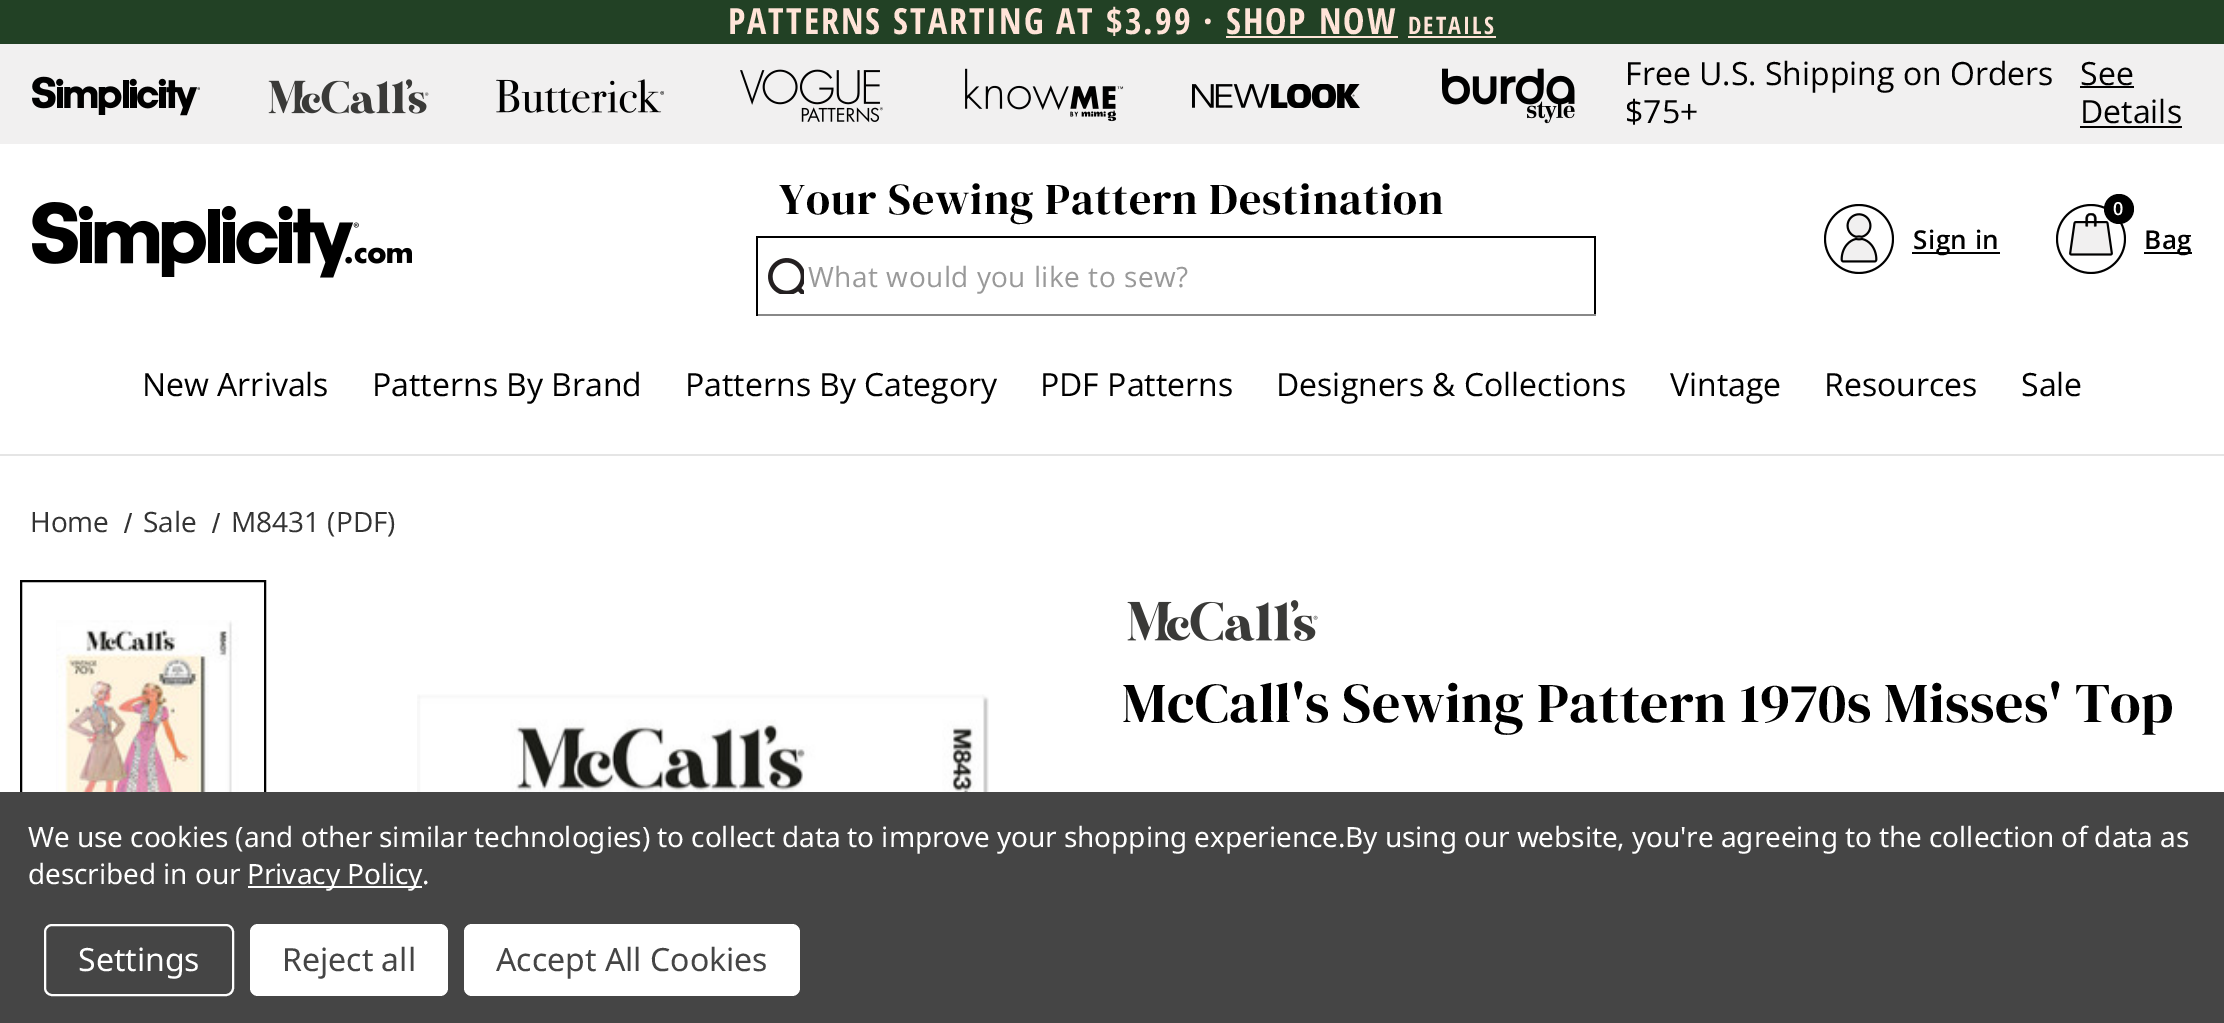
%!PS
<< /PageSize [2224 1023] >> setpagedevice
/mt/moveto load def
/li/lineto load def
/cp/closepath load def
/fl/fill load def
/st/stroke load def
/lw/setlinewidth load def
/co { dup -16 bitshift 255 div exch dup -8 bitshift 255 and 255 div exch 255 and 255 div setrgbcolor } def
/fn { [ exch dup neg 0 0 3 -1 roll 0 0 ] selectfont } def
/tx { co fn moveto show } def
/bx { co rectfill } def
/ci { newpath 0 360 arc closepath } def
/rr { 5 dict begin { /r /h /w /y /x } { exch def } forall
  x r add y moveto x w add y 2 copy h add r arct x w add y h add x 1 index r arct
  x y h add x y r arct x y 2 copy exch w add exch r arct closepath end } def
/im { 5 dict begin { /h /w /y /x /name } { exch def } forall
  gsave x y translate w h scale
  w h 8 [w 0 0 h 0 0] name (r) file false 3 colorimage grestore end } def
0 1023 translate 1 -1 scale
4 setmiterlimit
0 0 2224 1023 16#FFFFFF bx
0 454 2224 2 16#E5E5E5 bx
0 44 2224 100 16#F1F0F0 bx
0 0 2224 44 16#224125 bx
1226 36 172 2 16#FFE4D8 bx
1408 36 88 2 16#FFE4D8 bx
(media/1.raw) 32 76 168 40 im
(media/2.raw) 268 79 161 35 im
(media/3.raw) 496 79 168 34 im
(media/4.raw) 740 69 143 54 im
(media/5.raw) 965 68 159 54 im
(media/6.raw) 1192 84 168 24 im
(media/7.raw) 1442 68 133 56 im
2080 86 54 2 16#000000 bx
2080 126 102 2 16#000000 bx
(media/8.raw) 32 202 380 76 im
(media/9.raw) 768 258 36 36 im
756 236 840 2 16#000000 bx
1594 236 2 80 16#000000 bx
756 314 840 2 16#888888 bx
756 236 2 80 16#000000 bx
(media/10.raw) 1824 204 70 70 im
1912 252 88 2 16#000000 bx
(media/11.raw) 2056 204 70 70 im
2119 209 15 ci fl
2144 252 48 2 16#000000 bx
16#333333 co
130 513 mt 132 513 li 126 533 li 124 533 li cp fl
218 513 mt 220 513 li 214 533 li 212 533 li cp fl
16#000000 co
2 lw
21 581 244 332 rectstroke
(media/12.raw) 56 620 183 172 im
(media/13.raw) 417 694 572 98 im
(media/14.raw) 1127 600 191 41 im
0 792 2224 231 16#454545 bx
248 886 174 2 16#FFFFFF bx
45 925 188 70 7 rr st
250 924 198 72 8 rr fl
464 924 336 72 8 rr fl
/OpenSansCondensed-Bold 36 fn
16#FFE4D8 co
728 34 mt 2 0 (PATTERNS STARTING AT $3.99 · SHOP NOW) ashow
/OpenSansCondensed-Bold 24 fn
1408 34 mt 2 0 (DETAILS) ashow
(Free U.S. Shipping on Orders) 1625 85 /OpenSans-Regular 32 16#000000 tx
(See) 2080 85 /OpenSans-Regular 32 16#000000 tx
(Details) 2080 123 /OpenSans-Regular 32 16#000000 tx
($75+) 1625 123 /OpenSans-Regular 32 16#000000 tx
/DMSerifDisplay-Regular 44 fn
779 214 mt 1 0 (Your Sewing Pattern Destination) ashow
/OpenSans-Regular 28 fn
16#999999 co
808 287 mt .5 0 (What would you like to sew?) ashow
/OpenSans-SemiBold 26 fn
16#000000 co
1913 249 mt .5 0 (Sign in) ashow
(0) 2113 215 /OpenSans-SemiBold 18 16#FFFFFF tx
/OpenSans-SemiBold 26 fn
16#000000 co
2144 249 mt .5 0 (Bag) ashow
(New Arrivals) 142 396 /OpenSans-Regular 32 16#000000 tx
(Patterns By Brand) 372 396 /OpenSans-Regular 32 16#000000 tx
(Patterns By Category) 685 396 /OpenSans-Regular 32 16#000000 tx
(PDF Patterns) 1040 396 /OpenSans-Regular 32 16#000000 tx
(Designers & Collections) 1276 396 /OpenSans-Regular 32 16#000000 tx
(Vintage) 1670 396 /OpenSans-Regular 32 16#000000 tx
(Resources) 1824 396 /OpenSans-Regular 32 16#000000 tx
(Sale) 2021 396 /OpenSans-Regular 32 16#000000 tx
(Home) 30 532 /OpenSans-Regular 28 16#333333 tx
(Sale) 143 532 /OpenSans-Regular 28 16#333333 tx
(M8431 \(PDF\)) 231 532 /OpenSans-Regular 28 16#333333 tx
/DMSerifDisplay-Regular 56 fn
16#000000 co
1122 722 mt .5 0 (McCall's Sewing Pattern 1970s Misses' Top) ashow
/NotoSans-Regular 28 fn
16#FFFFFF co
28 847 mt -.1 0 (We use cookies \(and other similar technologies\) to collect data to improve your shopping experience.By using our website, you're agreeing to the collection of data as) ashow
28 884 mt -.1 0 (described in our) ashow
247 884 mt -.1 0 (Privacy Policy.) ashow
(Settings) 78 971 /NotoSans-Regular 32 16#FFFFFF tx
(Reject all) 282 971 /NotoSans-Regular 32 16#454545 tx
(Accept All Cookies) 496 971 /NotoSans-Regular 32 16#454545 tx
showpage
